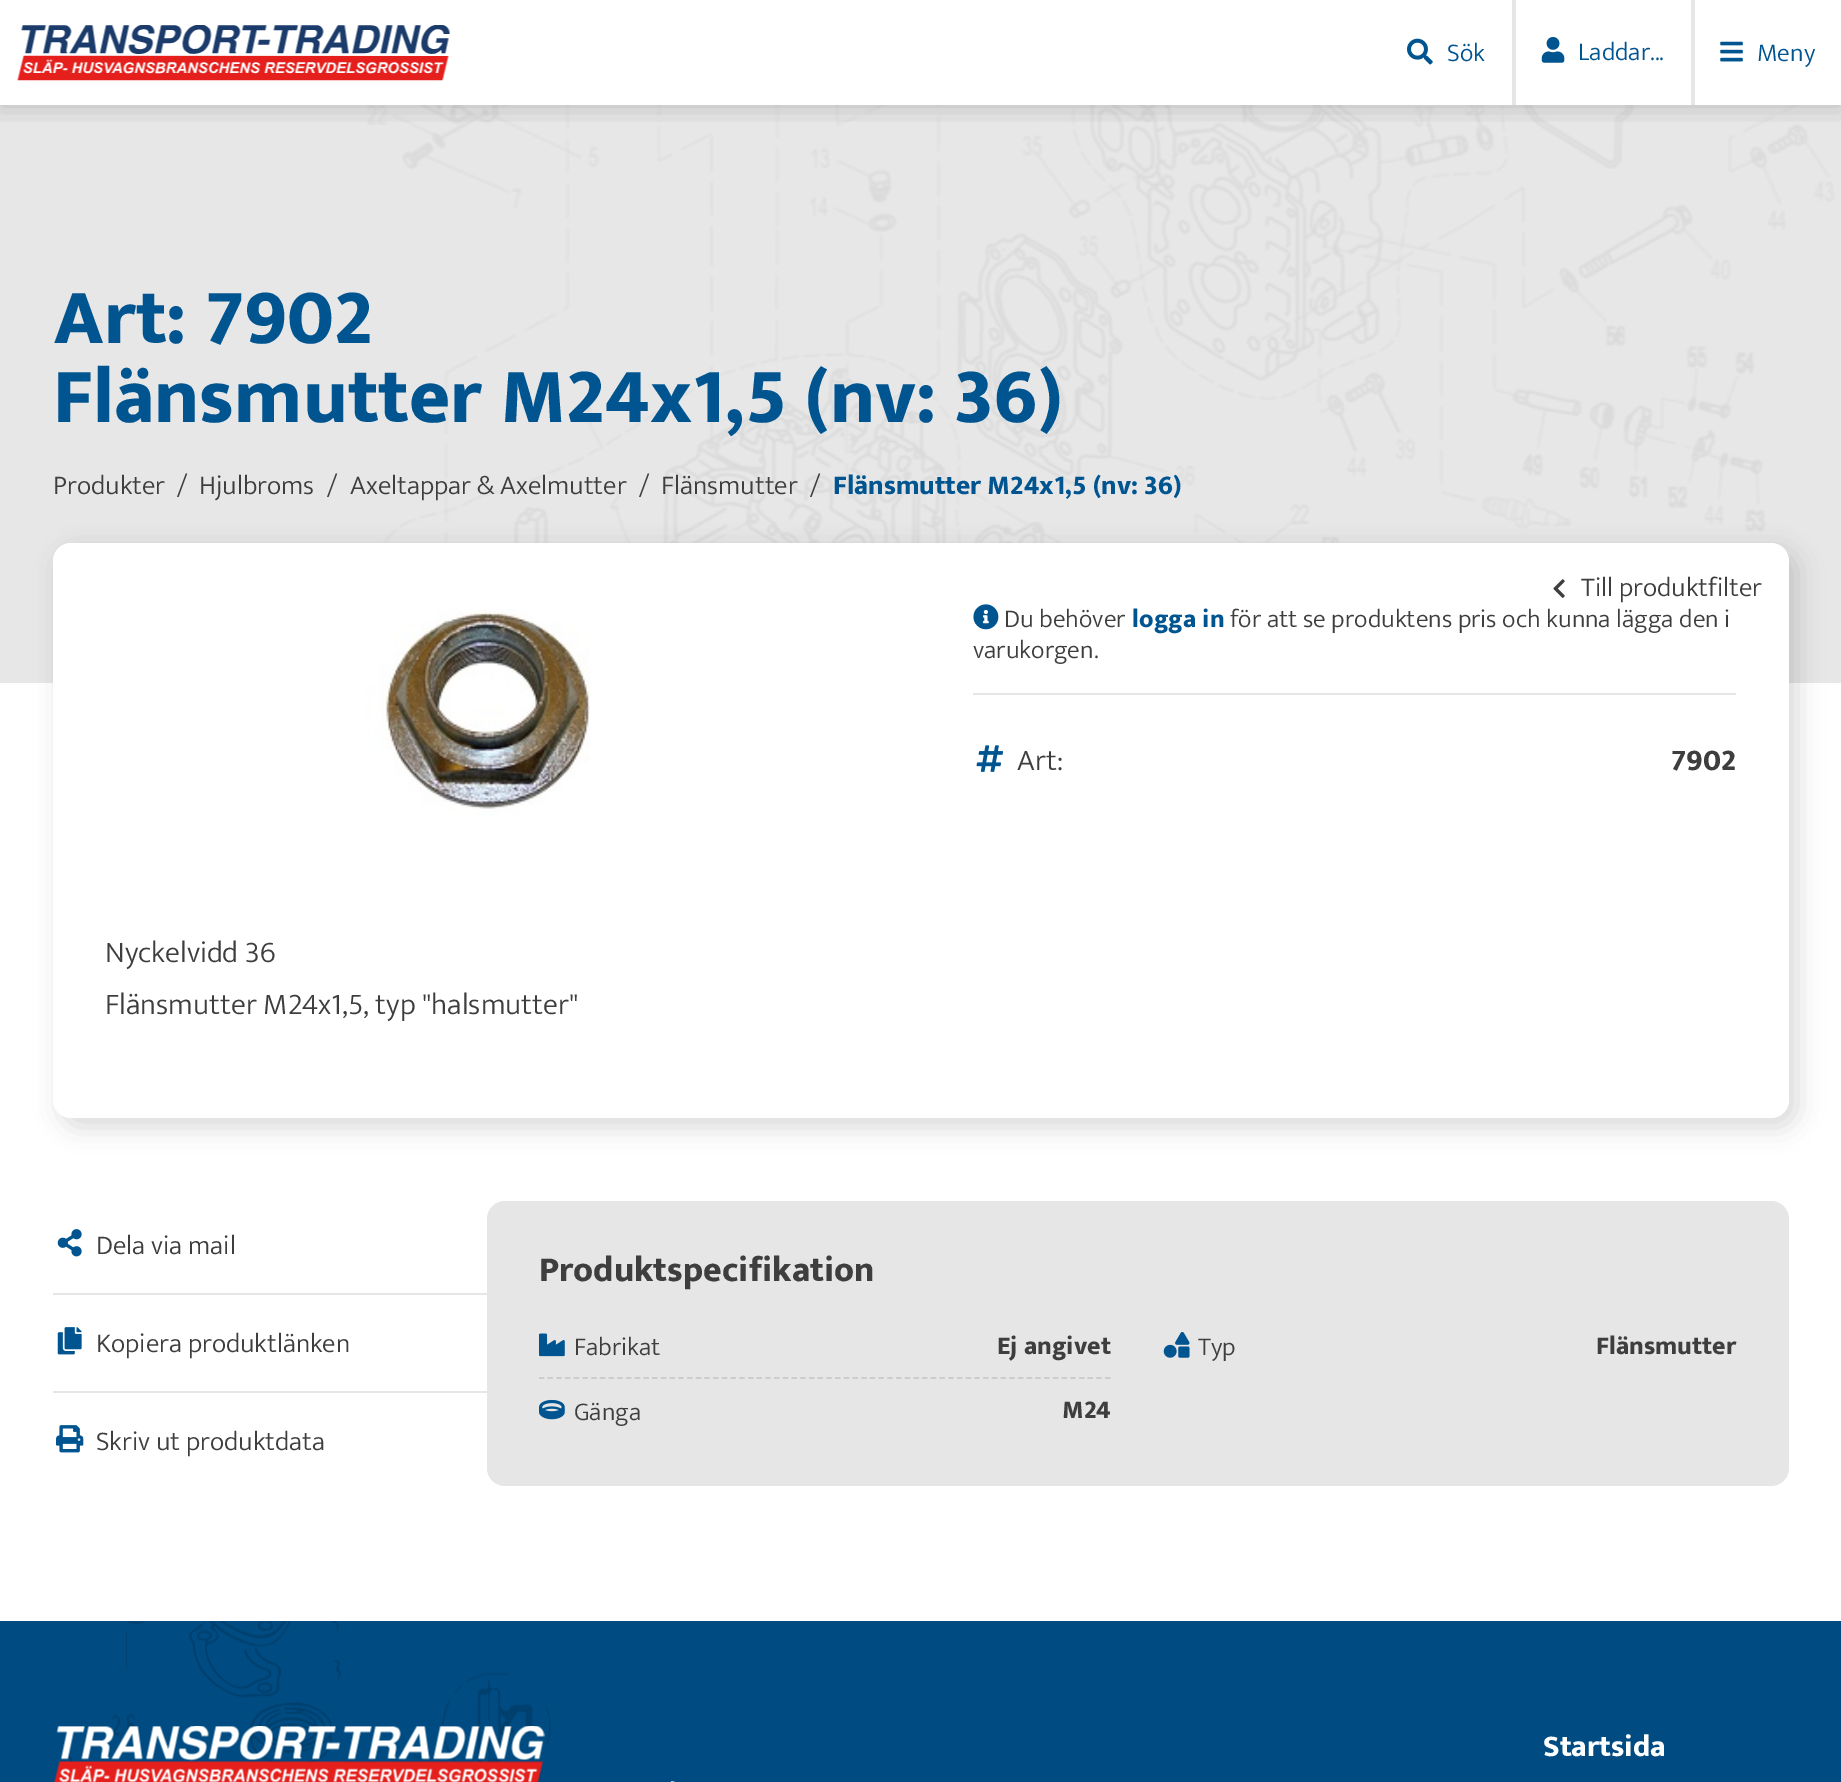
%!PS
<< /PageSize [1841 1782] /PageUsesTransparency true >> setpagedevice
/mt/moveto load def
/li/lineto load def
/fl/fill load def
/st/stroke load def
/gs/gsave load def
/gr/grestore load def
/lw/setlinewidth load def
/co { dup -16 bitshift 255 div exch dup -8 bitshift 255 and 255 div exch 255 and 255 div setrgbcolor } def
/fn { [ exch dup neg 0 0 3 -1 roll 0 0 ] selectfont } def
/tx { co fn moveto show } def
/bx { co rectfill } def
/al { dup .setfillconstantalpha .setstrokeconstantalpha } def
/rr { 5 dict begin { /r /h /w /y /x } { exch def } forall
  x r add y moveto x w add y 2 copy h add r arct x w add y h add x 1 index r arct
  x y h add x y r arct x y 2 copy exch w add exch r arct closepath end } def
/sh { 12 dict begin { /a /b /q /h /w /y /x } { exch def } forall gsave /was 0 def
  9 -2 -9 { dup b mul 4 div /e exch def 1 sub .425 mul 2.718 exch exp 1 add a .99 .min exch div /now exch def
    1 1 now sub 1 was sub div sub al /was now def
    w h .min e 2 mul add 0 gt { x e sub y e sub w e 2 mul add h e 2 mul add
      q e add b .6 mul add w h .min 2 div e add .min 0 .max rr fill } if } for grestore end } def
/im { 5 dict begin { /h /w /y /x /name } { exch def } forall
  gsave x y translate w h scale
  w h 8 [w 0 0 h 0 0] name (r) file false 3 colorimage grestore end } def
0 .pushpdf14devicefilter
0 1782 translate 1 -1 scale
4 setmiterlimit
0 0 1841 1782 16#FFFFFF bx
0 105 1841 578 16#E7E7E7 bx
(media/5.raw) 366 105 1470 438 im
gs
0 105 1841 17 rectclip
16#000000 co
0 0 1841 105 0 13 .2 sh
gr
(media/1.raw) 17 25 433 56 im
(media/2.raw) 1407 38 26 27 im
1512 0 4 105 16#E6E6E6 bx
(media/3.raw) 1541 37 24 26 im
1691 0 4 105 16#E6E6E6 bx
(media/4.raw) 1720 41 23 21 im
16#000000 co
61 551 1736 576 18 13 .15 sh
16#FFFFFF co
53 543 1736 575 18 rr fl
(media/6.raw) 1553 579 12 19 im
(media/7.raw) 366 609 225 206 im
973 693 763 2 16#E6E6E6 bx
(media/8.raw) 973 604 26 26 im
(media/9.raw) 976 745 28 27 im
53 1293 434 2 16#E6E6E6 bx
(media/10.raw) 57 1229 25 28 im
53 1391 434 2 16#E6E6E6 bx
(media/11.raw) 57 1327 25 28 im
(media/12.raw) 56 1425 28 28 im
487 1201 1302 285 18 rr fl
16#CCCCCC co
1.8 lw
[5.25 3.46] 0 setdash
539 1378 mt 1111 1378 li st
(media/13.raw) 539 1333 26 24 im
(media/14.raw) 1163 1332 27 26 im
(media/15.raw) 539 1399 26 21 im
0 1621 1841 161 16#004B81 bx
(media/16.raw) 64 1621 487 142 im
(media/17.raw) 54 1726 491 56 im
(media/18.raw) 670 1781 6 1 im
(Sök) 1447 61 /Mukta-Light 25.75 16#005490 tx
(Laddar...) 1578 60 /Mukta-Light 25.75 16#005490 tx
(Meny) 1757 61 /Mukta-Light 25.75 16#005490 tx
(Art: 7902) 53 343 /Mukta-ExtraBold 78.9 16#005490 tx
(Flänsmutter M24x1,5 \(nv: 36\)) 53 422 /Mukta-ExtraBold 78.9 16#005490 tx
(Produkter) 53 494 /Mukta-Light 27.25 16#3E3E3E tx
(/) 177 494 /Mukta-Light 27.25 16#3E3E3E tx
(Hjulbroms) 199 494 /Mukta-Light 27.25 16#3E3E3E tx
(/) 327 494 /Mukta-Light 27.25 16#3E3E3E tx
(Axeltappar & Axelmutter) 350 494 /Mukta-Light 27.25 16#3E3E3E tx
(/) 639 494 /Mukta-Light 27.25 16#3E3E3E tx
(Flänsmutter) 661 494 /Mukta-Light 27.25 16#3E3E3E tx
(/) 810 494 /Mukta-Light 27.25 16#3E3E3E tx
(Flänsmutter M24x1,5 \(nv: 36\)) 833 494 /Mukta-ExtraBold 27.25 16#005490 tx
(Till produktfilter) 1581 596 /Mukta-Light 27.25 16#3E3E3E tx
(Du behöver) 1004 627 /Mukta-Light 25.75 16#3E3E3E tx
(logga in) 1132 627 /Mukta-ExtraBold 25.75 16#005490 tx
(för att se produktens pris och kunna lägga den i) 1230 627 /Mukta-Light 25.75 16#3E3E3E tx
(varukorgen.) 973 658 /Mukta-Light 25.75 16#3E3E3E tx
(Art:) 1017 770 /Mukta-Light 30.3 16#3E3E3E tx
(7902) 1671 770 /Mukta-ExtraBold 30.3 16#3E3E3E tx
(Nyckelvidd 36) 105 962 /Mukta-Light 30.3 16#3E3E3E tx
(Flänsmutter M24x1,5, typ "halsmutter") 105 1014 /Mukta-Light 30.3 16#3E3E3E tx
(Dela via mail) 96 1254 /Mukta-Light 27.25 16#3E3E3E tx
(Kopiera produktlänken) 96 1352 /Mukta-Light 27.25 16#3E3E3E tx
(Skriv ut produktdata) 96 1450 /Mukta-Light 27.25 16#3E3E3E tx
(Produktspecifikation) 539 1281 /Mukta-ExtraBold 35.5 16#3E3E3E tx
(Fabrikat) 574 1355 /Mukta-Light 25.75 16#3E3E3E tx
(Ej angivet) 997 1354 /Mukta-ExtraBold 25.75 16#3E3E3E tx
(Typ) 1198 1355 /Mukta-Light 25.75 16#3E3E3E tx
(Flänsmutter) 1596 1354 /Mukta-ExtraBold 25.75 16#3E3E3E tx
(Gänga) 574 1420 /Mukta-Light 25.75 16#3E3E3E tx
(M24) 1062 1418 /Mukta-ExtraBold 25.75 16#3E3E3E tx
(Startsida) 1543 1756 /Mukta-ExtraBold 30.3 16#FFFFFF tx
.poppdf14devicefilter showpage
